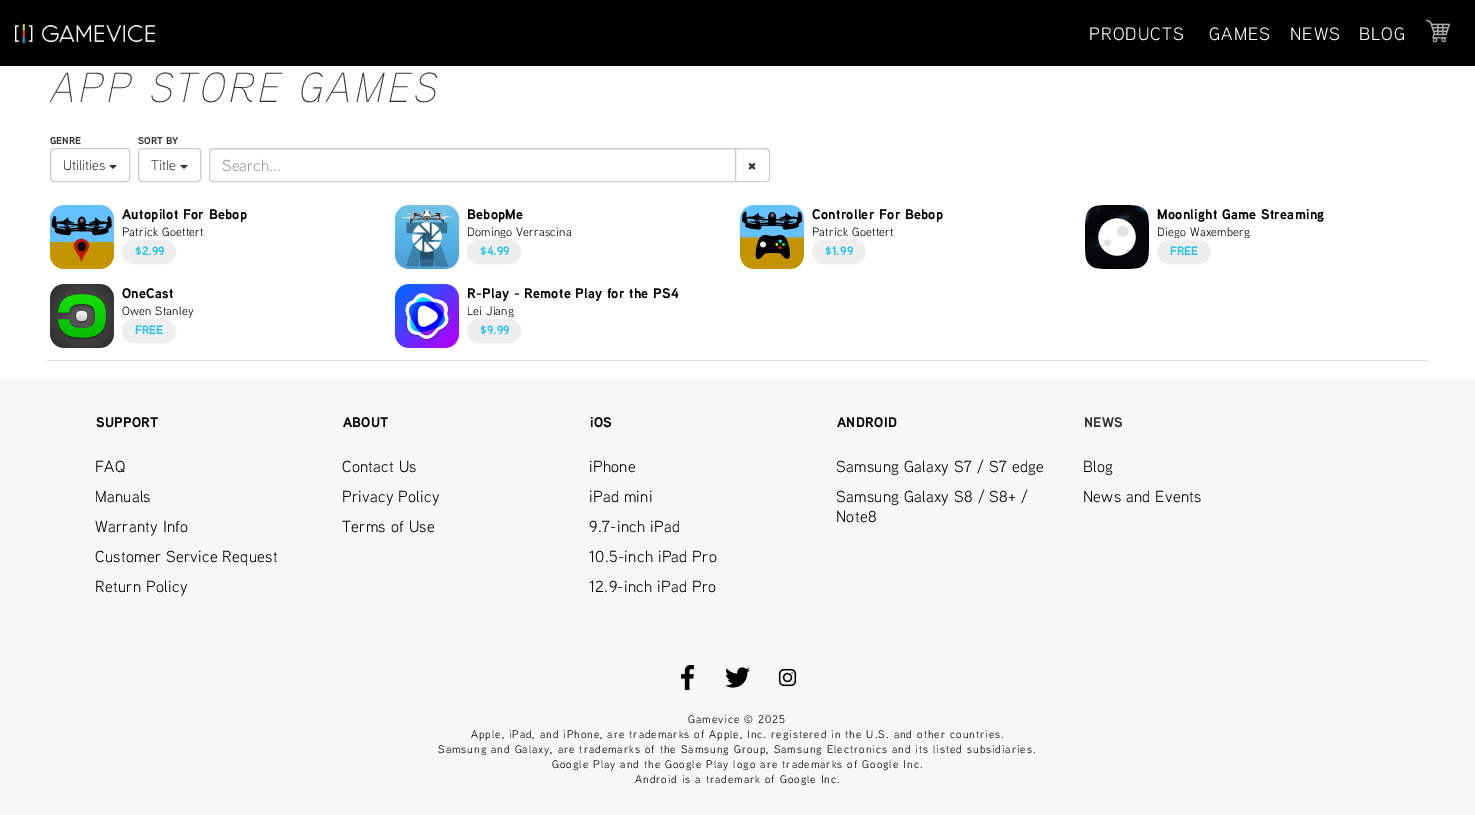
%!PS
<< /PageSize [1475 815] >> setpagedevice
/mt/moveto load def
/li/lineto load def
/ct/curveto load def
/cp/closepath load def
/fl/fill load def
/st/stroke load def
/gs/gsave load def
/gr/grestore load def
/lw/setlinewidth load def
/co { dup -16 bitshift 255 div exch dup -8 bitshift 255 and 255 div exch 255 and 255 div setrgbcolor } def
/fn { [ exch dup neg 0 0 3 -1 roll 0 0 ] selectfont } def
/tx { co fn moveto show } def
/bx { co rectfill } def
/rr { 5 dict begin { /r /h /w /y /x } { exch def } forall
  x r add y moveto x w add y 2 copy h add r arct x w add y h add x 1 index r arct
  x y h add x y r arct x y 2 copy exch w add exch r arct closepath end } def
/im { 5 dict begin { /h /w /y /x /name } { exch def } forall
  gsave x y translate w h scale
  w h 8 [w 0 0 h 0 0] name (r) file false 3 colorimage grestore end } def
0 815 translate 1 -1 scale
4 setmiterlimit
0 0 1475 815 16#FFFFFF bx
0 0 1475 66 16#000000 bx
(media/1.raw) 15 23 140 21 im
(media/2.raw) 1426 19 24 24 im
16#CCCCCC co
50.5 148.5 79 33 3.5 rr st
16#333333 co
109 165 mt 117 165 li 113 169 li cp fl
16#CCCCCC co
138.5 148.5 62 33 3.5 rr st
16#333333 co
180 165 mt 188 165 li 184 169 li cp fl
16#ECECEC co
213 150 mt 735 150 li 735 149 li 213 149 li 211 149 210 151 210 153 ct 210 151 211 150 213 150 ct cp fl
16#CCCCCC co
213 148.5 mt 735.5 148.5 li 735.5 181.5 li 213 181.5 li 211 181.5 209.5 180 209.5 178 ct 209.5 152 li 209.5 150 211 148.5 213 148.5 ct cp st
16#ECECEC co
736 150 mt 766 150 li 768 150 769 151 769 153 ct 769 152 li 769 150.5 767.5 149 766 149 ct 736 149 li cp fl
16#CCCCCC co
736 148 mt 766 148 li 768 148 770 150 770 152 ct 770 178 li 770 180 768 182 766 182 ct 736 182 li cp 736 149 mt 766 149 li 767.5 149 769 150.5 769 152 ct 769 178 li 769 179.5 767.5 181 766 181 ct 736 181 li cp eofill
47 360 1381 1 16#DDDDDD bx
(media/3.raw) 50 205 64 64 im
16#EEEEEE co
123.5 241.5 51 21 10.5 rr gs fl gr
3 lw
st
(media/4.raw) 395 205 64 64 im
468.5 241.5 51 21 10.5 rr gs fl gr
st
(media/5.raw) 740 205 64 64 im
813.5 241.5 51 21 10.5 rr gs fl gr
st
(media/6.raw) 1085 205 64 64 im
1158.5 241.5 51 21 10.5 rr gs fl gr
st
(media/7.raw) 50 284 64 64 im
123.5 320.5 51 21 10.5 rr gs fl gr
st
(media/8.raw) 395 284 64 64 im
468.5 320.5 51 21 10.5 rr gs fl gr
st
0 379 1475 436 16#F7F7F7 bx
(media/9.raw) 681 665 13 25 im
(media/10.raw) 725 667 25 21 im
(media/11.raw) 778 668 19 19 im
/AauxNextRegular-Regular 18 fn
16#FFFFFF co
1089 40 mt 1 0 (PRODUCTS) ashow
1209 40 mt 1 0 (GAMES) ashow
1290 40 mt 1 0 (NEWS) ashow
1359 40 mt 1 0 (BLOG) ashow
/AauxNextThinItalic-Thin 42 fn
16#333333 co
50 102 mt 4.25 0 (APP STORE GAMES) ashow
(GENRE) 50 144 /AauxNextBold-Bold 10 16#333333 tx
(Utilities) 63 170 /AauxNextRegular-Regular 14 16#333333 tx
(SORT BY) 138 144 /AauxNextBold-Bold 10 16#333333 tx
(Title) 151 170 /AauxNextRegular-Regular 14 16#333333 tx
(Search...) 222 171 /AauxNextRegular-Regular 16 16#999999 tx
(✖) 748 171 /DejaVuSansMono-Bold 14 16#333333 tx
/AauxNextBold-Bold 14 fn
16#000000 co
122 219 mt .25 0 (Autopilot For Bebop) ashow
/AauxNextRegular-Regular 12 fn
122 236 mt .25 0 (Patrick Goettert) ashow
($2.99) 135 255 /AauxNextBold-Bold 12 16#2CC3E7 tx
/AauxNextBold-Bold 14 fn
16#000000 co
467 219 mt .25 0 (BebopMe) ashow
gs
467 205 268 33 rectclip
/AauxNextRegular-Regular 12 fn
467 236 mt .25 0 (Domingo Verrascina) ashow
gr
($4.99) 480 255 /AauxNextBold-Bold 12 16#2CC3E7 tx
/AauxNextBold-Bold 14 fn
16#000000 co
812 219 mt .25 0 (Controller For Bebop) ashow
/AauxNextRegular-Regular 12 fn
812 236 mt .25 0 (Patrick Goettert) ashow
($1.99) 825 255 /AauxNextBold-Bold 12 16#2CC3E7 tx
/AauxNextBold-Bold 14 fn
16#000000 co
1157 219 mt .25 0 (Moonlight Game Streaming) ashow
gs
1157 205 269 33 rectclip
/AauxNextRegular-Regular 12 fn
1157 236 mt .25 0 (Diego Waxemberg) ashow
gr
(FREE) 1170 255 /AauxNextBold-Bold 12 16#2CC3E7 tx
/AauxNextBold-Bold 14 fn
16#000000 co
122 298 mt .25 0 (OneCast) ashow
/AauxNextRegular-Regular 12 fn
122 315 mt .25 0 (Owen Stanley) ashow
(FREE) 135 334 /AauxNextBold-Bold 12 16#2CC3E7 tx
/AauxNextBold-Bold 14 fn
16#000000 co
467 298 mt .25 0 (R-Play - Remote Play for the PS4) ashow
gs
467 284 268 33 rectclip
/AauxNextRegular-Regular 12 fn
467 315 mt .25 0 (Lei Jiang) ashow
gr
($9.99) 480 334 /AauxNextBold-Bold 12 16#2CC3E7 tx
/AauxNextBold-Bold 14 fn
16#000000 co
96 427 mt .25 0 (SUPPORT) ashow
/AauxNextRegular-Regular 16 fn
95 472 mt .3 0 (FAQ) ashow
95 502 mt .3 0 (Manuals) ashow
95 532 mt .3 0 (Warranty Info) ashow
95 562 mt .3 0 (Customer Service Request) ashow
95 592 mt .3 0 (Return Policy) ashow
/AauxNextBold-Bold 14 fn
343 427 mt .25 0 (ABOUT) ashow
/AauxNextRegular-Regular 16 fn
342 472 mt .3 0 (Contact Us) ashow
342 502 mt .3 0 (Privacy Policy) ashow
342 532 mt .3 0 (Terms of Use) ashow
/AauxNextBold-Bold 14 fn
590 427 mt .25 0 (iOS) ashow
/AauxNextRegular-Regular 16 fn
589 472 mt .3 0 (iPhone) ashow
589 502 mt .3 0 (iPad mini) ashow
589 532 mt .3 0 (9.7-inch iPad) ashow
589 562 mt .3 0 (10.5-inch iPad Pro) ashow
589 592 mt .3 0 (12.9-inch iPad Pro) ashow
/AauxNextBold-Bold 14 fn
837 427 mt .25 0 (ANDROID) ashow
/AauxNextRegular-Regular 16 fn
836 472 mt .3 0 (Samsung Galaxy S7 / S7 edge) ashow
836 502 mt .3 0 (Samsung Galaxy S8 / S8+ /) ashow
836 522 mt .3 0 (Note8) ashow
/AauxNextBold-Bold 14 fn
16#333333 co
1084 427 mt .25 0 (NEWS) ashow
/AauxNextRegular-Regular 16 fn
16#000000 co
1083 472 mt .3 0 (Blog) ashow
1083 502 mt .3 0 (News and Events) ashow
/AauxNextRegular-Regular 11 fn
688 723 mt 1 0 (Gamevice © 2025) ashow
471 738 mt 1 0 (Apple, iPad, and iPhone, are trademarks of Apple, Inc. registered in the U.S. and other countries.) ashow
438 753 mt 1 0 (Samsung and Galaxy, are trademarks of the Samsung Group, Samsung Electronics and its listed subsidiaries.) ashow
552 768 mt 1 0 (Google Play and the Google Play logo are trademarks of Google Inc.) ashow
635 783 mt 1 0 (Android is a trademark of Google Inc.) ashow
showpage
